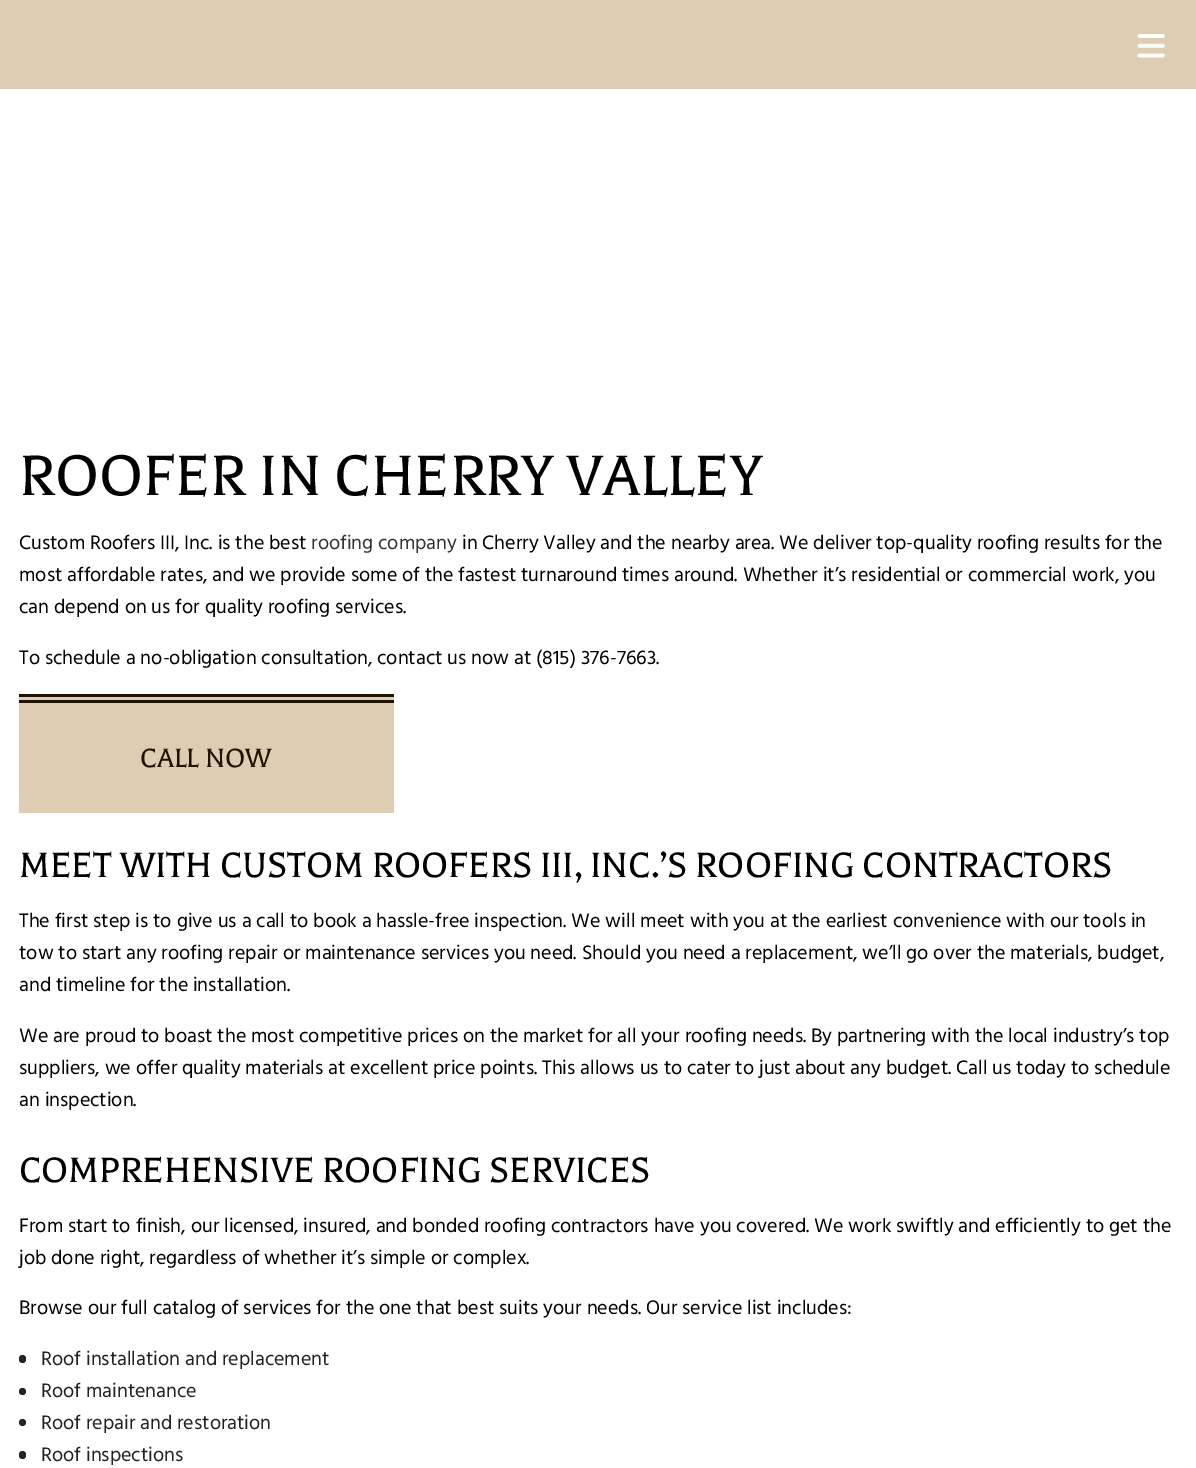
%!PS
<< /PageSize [1196 1468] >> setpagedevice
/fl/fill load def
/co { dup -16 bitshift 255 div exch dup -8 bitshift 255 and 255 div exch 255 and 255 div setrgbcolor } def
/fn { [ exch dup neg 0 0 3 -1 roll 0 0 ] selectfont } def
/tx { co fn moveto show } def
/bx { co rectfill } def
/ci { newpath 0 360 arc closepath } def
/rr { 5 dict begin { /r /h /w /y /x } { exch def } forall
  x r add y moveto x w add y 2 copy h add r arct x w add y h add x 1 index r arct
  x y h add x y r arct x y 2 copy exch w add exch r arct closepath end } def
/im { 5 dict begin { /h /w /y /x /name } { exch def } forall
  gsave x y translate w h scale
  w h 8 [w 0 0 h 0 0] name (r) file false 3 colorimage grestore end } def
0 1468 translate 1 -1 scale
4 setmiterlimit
0 0 1196 1468 16#FFFFFF bx
0 0 1196 89 16#DECDB3 bx
(media/1.raw) 1137 34 28 24 im
19 697 375 116 16#DECDB3 bx
19 694 375 3 16#1F1302 bx
19 700 375 3 16#1F1302 bx
16#222222 co
19 1355 7 8 3.5 rr fl
22.5 1391.5 3.5 ci fl
22.5 1422.5 3.5 ci fl
19 1451 7 8 3.5 rr fl
(ROOFER IN CHERRY VALLEY) 19 495 /Balthazar-Regular 65 16#000000 tx
(Custom Roofers III, Inc. is the best) 19 549 /Hind-Regular 20 16#000000 tx
(roofing company) 311 549 /Hind-Regular 20 16#333333 tx
(in Cherry Valley and the nearby area. We deliver top-quality roofing results for the) 462 549 /Hind-Regular 20 16#000000 tx
(most affordable rates, and we provide some of the fastest turnaround times around. Whether it’s residential or commercial work, you) 19 581 /Hind-Regular 20 16#000000 tx
(can depend on us for quality roofing services.) 19 613 /Hind-Regular 20 16#000000 tx
(To schedule a no-obligation consultation, contact us now at \(815\) 376-7663.) 19 664 /Hind-Regular 20 16#000000 tx
(CALL NOW) 140 767 /Balthazar-Regular 30 16#1F1302 tx
(MEET WITH CUSTOM ROOFERS III, INC.’S ROOFING CONTRACTORS) 19 877 /Balthazar-Regular 40 16#000000 tx
(The first step is to give us a call to book a hassle-free inspection. We will meet with you at the earliest convenience with our tools in) 19 927 /Hind-Regular 20 16#000000 tx
(tow to start any roofing repair or maintenance services you need. Should you need a replacement, we’ll go over the materials, budget,) 19 959 /Hind-Regular 20 16#000000 tx
(and timeline for the installation.) 19 991 /Hind-Regular 20 16#000000 tx
(We are proud to boast the most competitive prices on the market for all your roofing needs. By partnering with the local industry’s top) 19 1042 /Hind-Regular 20 16#000000 tx
(suppliers, we offer quality materials at excellent price points. This allows us to cater to just about any budget. Call us today to schedule) 19 1074 /Hind-Regular 20 16#000000 tx
(an inspection.) 19 1106 /Hind-Regular 20 16#000000 tx
(COMPREHENSIVE ROOFING SERVICES) 19 1182 /Balthazar-Regular 40 16#000000 tx
(From start to finish, our licensed, insured, and bonded roofing contractors have you covered. We work swiftly and efficiently to get the) 19 1232 /Hind-Regular 20 16#000000 tx
(job done right, regardless of whether it’s simple or complex.) 19 1264 /Hind-Regular 20 16#000000 tx
(Browse our full catalog of services for the one that best suits your needs. Our service list includes:) 19 1314 /Hind-Regular 20 16#000000 tx
(Roof installation and replacement) 41 1365 /Hind-Regular 20 16#222222 tx
(Roof maintenance) 41 1397 /Hind-Regular 20 16#222222 tx
(Roof repair and restoration) 41 1429 /Hind-Regular 20 16#222222 tx
(Roof inspections) 41 1461 /Hind-Regular 20 16#222222 tx
showpage
